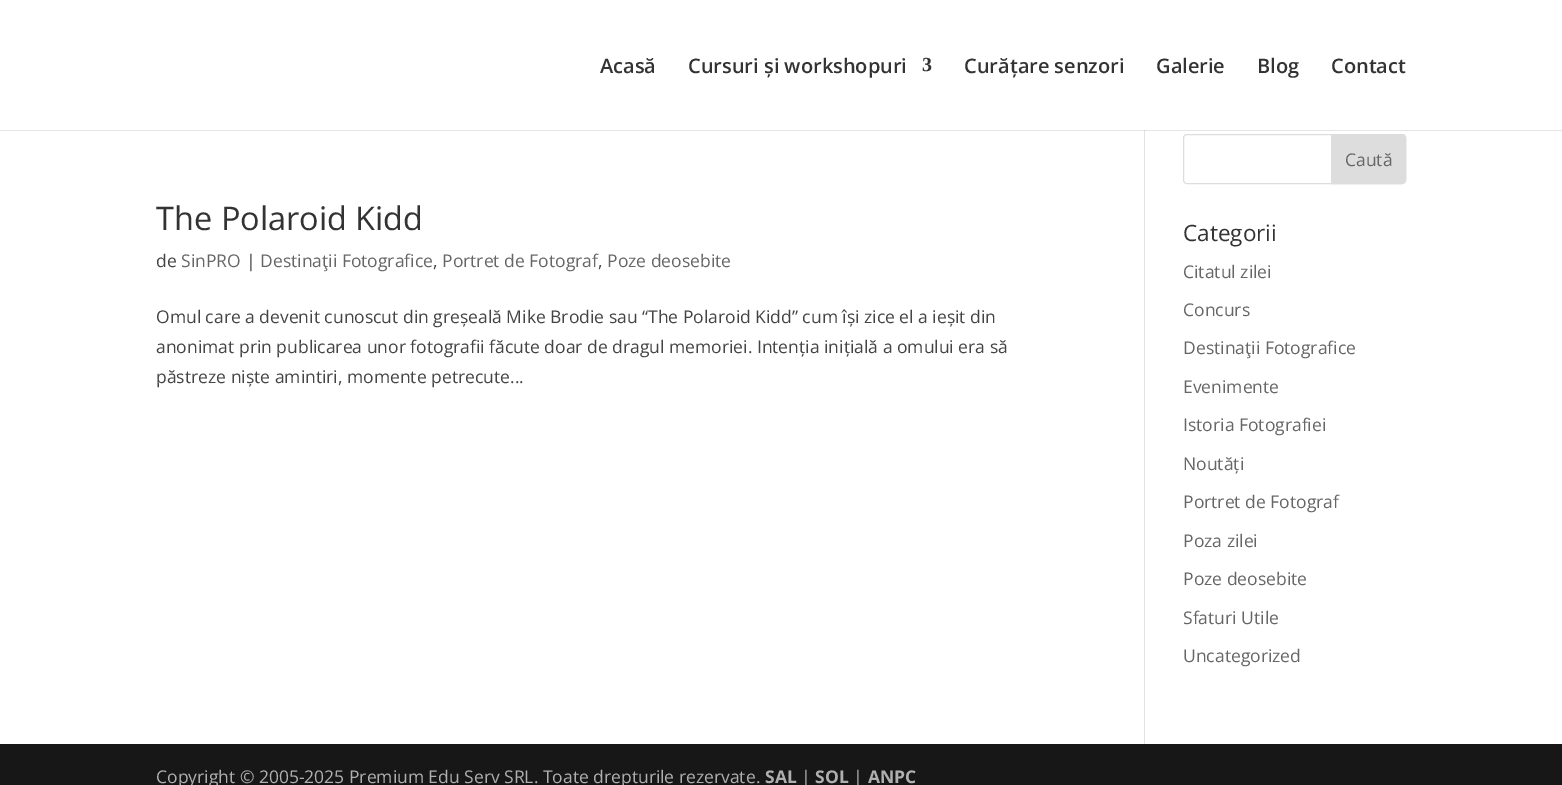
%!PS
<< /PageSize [1562 785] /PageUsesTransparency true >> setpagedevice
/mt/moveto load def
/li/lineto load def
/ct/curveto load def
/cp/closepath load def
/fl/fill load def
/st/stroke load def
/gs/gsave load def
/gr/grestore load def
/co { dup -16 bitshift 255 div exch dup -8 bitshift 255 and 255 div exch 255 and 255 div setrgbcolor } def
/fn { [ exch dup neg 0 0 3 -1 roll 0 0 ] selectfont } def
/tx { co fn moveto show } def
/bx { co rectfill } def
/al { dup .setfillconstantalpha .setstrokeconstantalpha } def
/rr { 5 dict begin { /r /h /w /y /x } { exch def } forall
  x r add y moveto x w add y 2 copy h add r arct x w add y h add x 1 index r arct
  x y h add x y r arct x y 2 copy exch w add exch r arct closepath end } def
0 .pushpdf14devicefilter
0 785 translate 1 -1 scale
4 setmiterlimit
0 0 1562 785 16#FFFFFF bx
1144 130 1 614 16#E2E2E2 bx
0.1 al
16#000000 co
0 130 mt 0 131 li 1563 131 li 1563 1 li 1562 1 li 1562 130 li cp fl
1 al
16#DDDDDD co
1183.5 134.5 222 49 3.5 rr st
1331.5 134.5 mt 1402 134.5 li 1404 134.5 1405.5 136 1405.5 138 ct 1405.5 180 li 1405.5 182 1404 183.5 1402 183.5 ct 1331.5 183.5 li cp gs fl gr
st
0 744 1562 41 16#171717 bx
(Acasă) 600 73 /OpenSans-SemiBold 20 16#333333 tx
(Cursuri și workshopuri) 688 73 /OpenSans-SemiBold 20 16#333333 tx
(3) 922 71 /LiberationSerif-Bold 20 16#333333 tx
(Curățare senzori) 964 73 /OpenSans-SemiBold 20 16#333333 tx
(Galerie) 1156 73 /OpenSans-SemiBold 20 16#333333 tx
(Blog) 1257 73 /OpenSans-SemiBold 20 16#333333 tx
(Contact) 1331 73 /OpenSans-SemiBold 20 16#333333 tx
(The Polaroid Kidd) 156 230 /OpenSans-Regular 32.5 16#333333 tx
(de) 156 267 /OpenSans-Regular 17.5 16#444444 tx
(SinPRO) 181 267 /OpenSans-Regular 17.5 16#666666 tx
(|) 246 267 /OpenSans-Regular 17.5 16#444444 tx
(Destinaţii Fotografice) 260 267 /OpenSans-Regular 17.5 16#666666 tx
(,) 433 267 /OpenSans-Regular 17.5 16#444444 tx
(Portret de Fotograf) 442 267 /OpenSans-Regular 17.5 16#666666 tx
(,) 598 267 /OpenSans-Regular 17.5 16#444444 tx
(Poze deosebite) 607 267 /OpenSans-Regular 17.5 16#666666 tx
(Omul care a devenit cunoscut din greșeală Mike Brodie sau “The Polaroid Kidd” cum își zice el a ieșit din) 156 323 /OpenSans-Regular 17.5 16#444444 tx
(anonimat prin publicarea unor fotografii făcute doar de dragul memoriei. Intenția inițială a omului era să) 156 353 /OpenSans-Regular 17.5 16#444444 tx
(păstreze niște amintiri, momente petrecute...) 156 383 /OpenSans-Regular 17.5 16#444444 tx
(Caută) 1345 166 /OpenSans-Regular 17.5 16#666666 tx
(Categorii) 1183 241 /OpenSans-Regular 22.5 16#333333 tx
(Citatul zilei) 1183 278 /OpenSans-Regular 17.5 16#666666 tx
(Concurs) 1183 316 /OpenSans-Regular 17.5 16#666666 tx
(Destinaţii Fotografice) 1183 354 /OpenSans-Regular 17.5 16#666666 tx
(Evenimente) 1183 393 /OpenSans-Regular 17.5 16#666666 tx
(Istoria Fotografiei) 1183 431 /OpenSans-Regular 17.5 16#666666 tx
(Noutăți) 1183 470 /OpenSans-Regular 17.5 16#666666 tx
(Portret de Fotograf) 1183 508 /OpenSans-Regular 17.5 16#666666 tx
(Poza zilei) 1183 547 /OpenSans-Regular 17.5 16#666666 tx
(Poze deosebite) 1183 585 /OpenSans-Regular 17.5 16#666666 tx
(Sfaturi Utile) 1183 624 /OpenSans-Regular 17.5 16#666666 tx
(Uncategorized) 1183 662 /OpenSans-Regular 17.5 16#666666 tx
(Copyright © 2005-2025 Premium Edu Serv SRL. Toate drepturile rezervate.) 156 783 /OpenSans-Regular 17.5 16#AFAFAF tx
(SAL) 765 783 /OpenSans-Bold 17.5 16#AFAFAF tx
(|) 801 783 /OpenSans-Regular 17.5 16#AFAFAF tx
(SOL) 815 783 /OpenSans-Bold 17.5 16#AFAFAF tx
(|) 853 783 /OpenSans-Regular 17.5 16#AFAFAF tx
(ANPC) 868 783 /OpenSans-Bold 17.5 16#AFAFAF tx
.poppdf14devicefilter showpage
